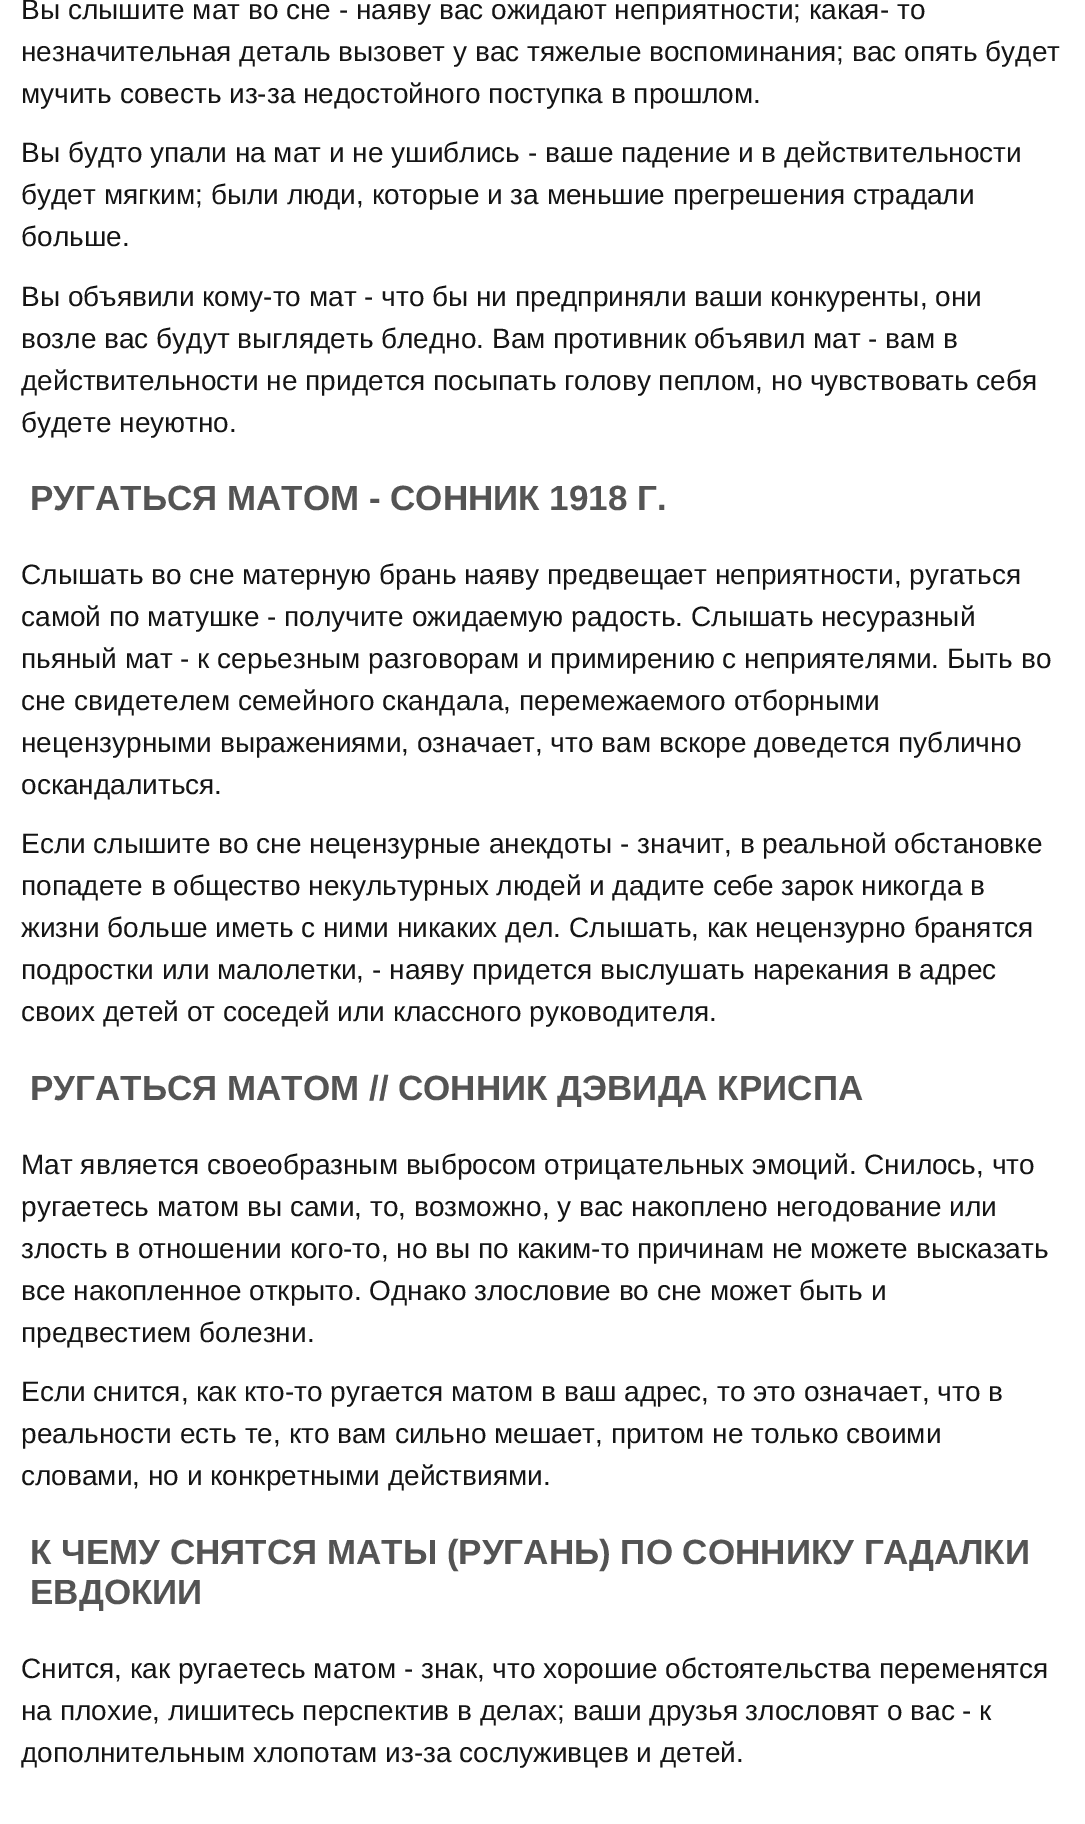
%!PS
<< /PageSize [1085 1824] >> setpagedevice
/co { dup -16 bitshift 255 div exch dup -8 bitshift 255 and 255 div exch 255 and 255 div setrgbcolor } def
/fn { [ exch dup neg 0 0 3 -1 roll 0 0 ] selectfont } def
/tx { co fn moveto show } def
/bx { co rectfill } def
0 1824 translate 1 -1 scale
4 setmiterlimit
0 0 1085 1824 16#FFFFFF bx
(Вы слышите мат во сне - наяву вас ожидают неприятности; какая- то) 21 19 /LiberationSans-Regular 28 16#151515 tx
(незначительная деталь вызовет у вас тяжелые воспоминания; вас опять будет) 21 61 /LiberationSans-Regular 28 16#151515 tx
(мучить совесть из-за недостойного поступка в прошлом.) 21 103 /LiberationSans-Regular 28 16#151515 tx
(Вы будто упали на мат и не ушиблись - ваше падение и в действительности) 21 162 /LiberationSans-Regular 28 16#151515 tx
(будет мягким; были люди, которые и за меньшие прегрешения страдали) 21 204 /LiberationSans-Regular 28 16#151515 tx
(больше.) 21 246 /LiberationSans-Regular 28 16#151515 tx
(Вы объявили кому-то мат - что бы ни предприняли ваши конкуренты, они) 21 306 /LiberationSans-Regular 28 16#151515 tx
(возле вас будут выглядеть бледно. Вам противник объявил мат - вам в) 21 348 /LiberationSans-Regular 28 16#151515 tx
(действительности не придется посыпать голову пеплом, но чувствовать себя) 21 390 /LiberationSans-Regular 28 16#151515 tx
(будете неуютно.) 21 432 /LiberationSans-Regular 28 16#151515 tx
(РУГАТЬСЯ МАТОМ - СОННИК 1918 Г.) 30 510 /LiberationSans-Bold 35 16#545454 tx
(Слышать во сне матерную брань наяву предвещает неприятности, ругаться) 21 584 /LiberationSans-Regular 28 16#151515 tx
(самой по матушке - получите ожидаемую радость. Слышать несуразный) 21 626 /LiberationSans-Regular 28 16#151515 tx
(пьяный мат - к серьезным разговорам и примирению с неприятелями. Быть во) 21 668 /LiberationSans-Regular 28 16#151515 tx
(сне свидетелем семейного скандала, перемежаемого отборными) 21 710 /LiberationSans-Regular 28 16#151515 tx
(нецензурными выражениями, означает, что вам вскоре доведется публично) 21 752 /LiberationSans-Regular 28 16#151515 tx
(оскандалиться.) 21 794 /LiberationSans-Regular 28 16#151515 tx
(Если слышите во сне нецензурные анекдоты - значит, в реальной обстановке) 21 853 /LiberationSans-Regular 28 16#151515 tx
(попадете в общество некультурных людей и дадите себе зарок никогда в) 21 895 /LiberationSans-Regular 28 16#151515 tx
(жизни больше иметь с ними никаких дел. Слышать, как нецензурно бранятся) 21 937 /LiberationSans-Regular 28 16#151515 tx
(подростки или малолетки, - наяву придется выслушать нарекания в адрес) 21 979 /LiberationSans-Regular 28 16#151515 tx
(своих детей от соседей или классного руководителя.) 21 1021 /LiberationSans-Regular 28 16#151515 tx
(РУГАТЬСЯ МАТОМ // СОННИК ДЭВИДА КРИСПА) 30 1100 /LiberationSans-Bold 35 16#545454 tx
(Мат является своеобразным выбросом отрицательных эмоций. Снилось, что) 21 1174 /LiberationSans-Regular 28 16#151515 tx
(ругаетесь матом вы сами, то, возможно, у вас накоплено негодование или) 21 1216 /LiberationSans-Regular 28 16#151515 tx
(злость в отношении кого-то, но вы по каким-то причинам не можете высказать) 21 1258 /LiberationSans-Regular 28 16#151515 tx
(все накопленное открыто. Однако злословие во сне может быть и) 21 1300 /LiberationSans-Regular 28 16#151515 tx
(предвестием болезни.) 21 1342 /LiberationSans-Regular 28 16#151515 tx
(Если снится, как кто-то ругается матом в ваш адрес, то это означает, что в) 21 1401 /LiberationSans-Regular 28 16#151515 tx
(реальности есть те, кто вам сильно мешает, притом не только своими) 21 1443 /LiberationSans-Regular 28 16#151515 tx
(словами, но и конкретными действиями.) 21 1485 /LiberationSans-Regular 28 16#151515 tx
(К ЧЕМУ СНЯТСЯ МАТЫ \(РУГАНЬ\) ПО СОННИКУ ГАДАЛКИ) 30 1564 /LiberationSans-Bold 35 16#545454 tx
(ЕВДОКИИ) 30 1604 /LiberationSans-Bold 35 16#545454 tx
(Снится, как ругаетесь матом - знак, что хорошие обстоятельства переменятся) 21 1678 /LiberationSans-Regular 28 16#151515 tx
(на плохие, лишитесь перспектив в делах; ваши друзья злословят о вас - к) 21 1720 /LiberationSans-Regular 28 16#151515 tx
(дополнительным хлопотам из-за сослуживцев и детей.) 21 1762 /LiberationSans-Regular 28 16#151515 tx
showpage
